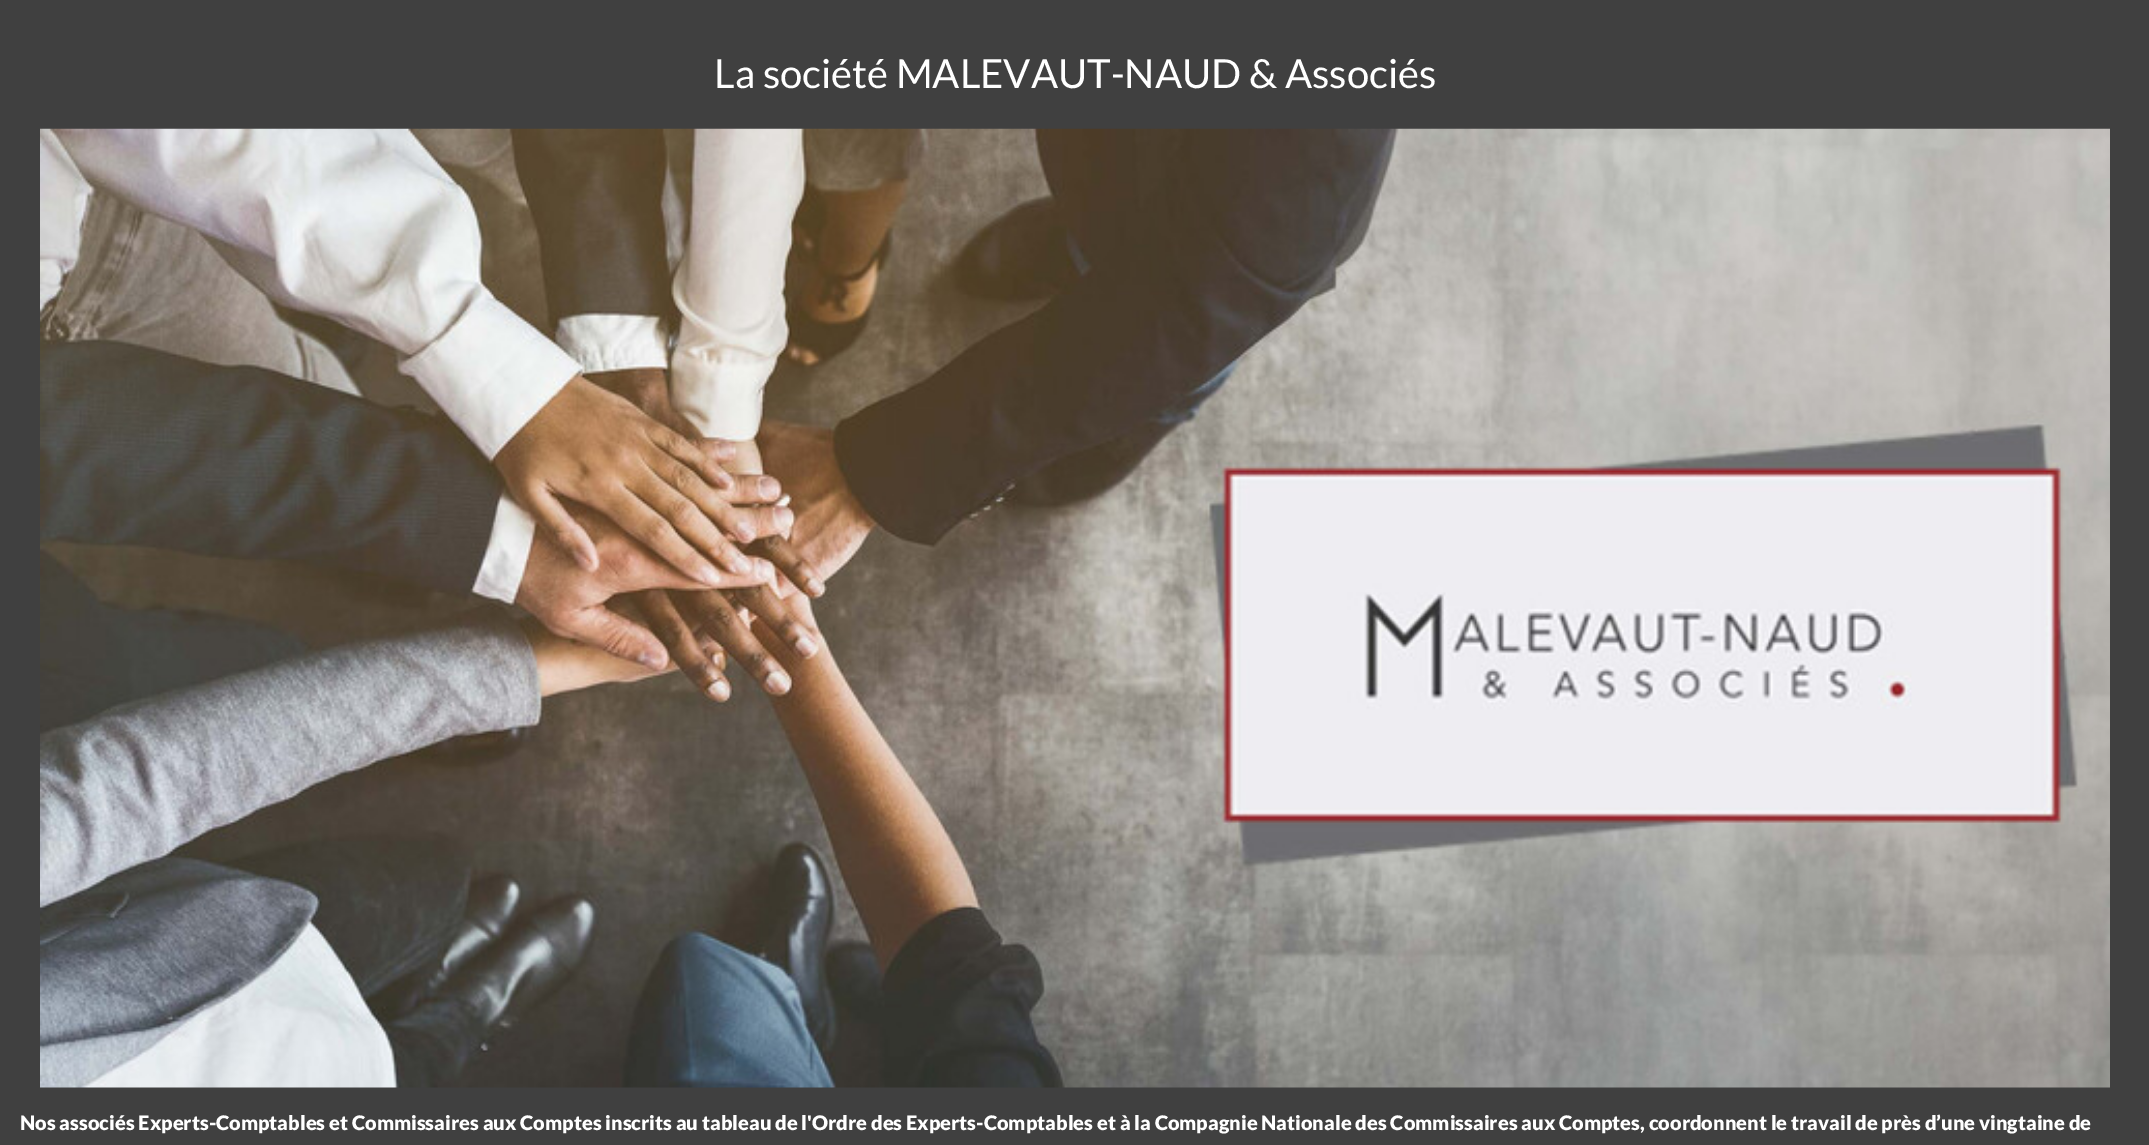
%!PS
<< /PageSize [2149 1145] >> setpagedevice
/co { dup -16 bitshift 255 div exch dup -8 bitshift 255 and 255 div exch 255 and 255 div setrgbcolor } def
/fn { [ exch dup neg 0 0 3 -1 roll 0 0 ] selectfont } def
/tx { co fn moveto show } def
/bx { co rectfill } def
/im { 5 dict begin { /h /w /y /x /name } { exch def } forall
  gsave x y translate w h scale
  w h 8 [w 0 0 h 0 0] name (r) file false 3 colorimage grestore end } def
0 1145 translate 1 -1 scale
4 setmiterlimit
0 0 2149 1145 16#404040 bx
(media/1.raw) 40 128 2070 960 im
(La société MALEVAUT-NAUD & Associés) 714 88 /Lato-Regular 40 16#FFFFFF tx
(Nos associés Experts-Comptables et Commissaires aux Comptes inscrits au tableau de l'Ordre des Experts-Comptables et à la Compagnie Nationale des Commissaires aux Comptes, coordonnent le travail de près d’une vingtaine de) 20 1130 /Lato-Black 20 16#FFFFFF tx
showpage
